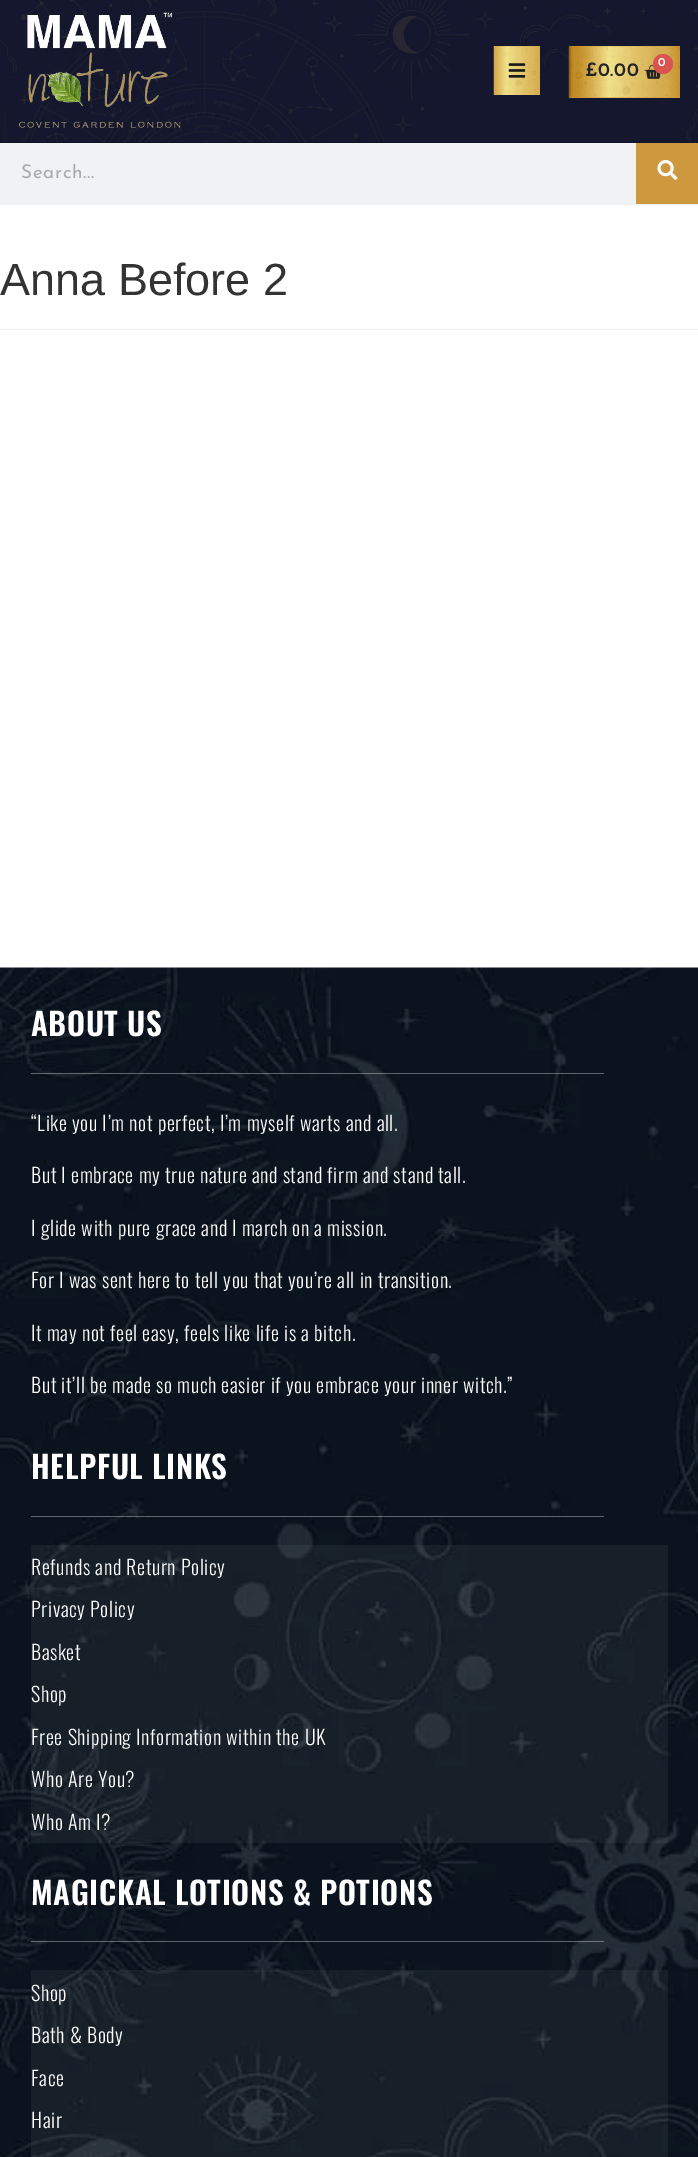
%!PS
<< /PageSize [698 2157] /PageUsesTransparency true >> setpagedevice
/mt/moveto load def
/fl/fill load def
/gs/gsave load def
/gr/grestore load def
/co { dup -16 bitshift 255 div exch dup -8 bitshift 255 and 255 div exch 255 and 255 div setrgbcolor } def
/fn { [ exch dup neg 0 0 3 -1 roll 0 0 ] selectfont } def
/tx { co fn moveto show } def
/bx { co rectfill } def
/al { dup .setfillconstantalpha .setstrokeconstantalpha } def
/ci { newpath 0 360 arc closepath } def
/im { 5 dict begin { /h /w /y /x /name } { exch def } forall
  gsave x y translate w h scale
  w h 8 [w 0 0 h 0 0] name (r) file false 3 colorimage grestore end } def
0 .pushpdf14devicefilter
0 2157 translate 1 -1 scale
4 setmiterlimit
0 0 698 2157 16#FFFFFF bx
0 142 698 1 16#0C1023 bx
(media/1.raw) 0 0 698 143 im
0.5 al
0 0 698 143 16#0C1023 bx
1 al
(media/2.raw) 18 12 163 116 im
(media/3.raw) 493 46 47 49 im
(media/4.raw) 508 63 18 15 im
569 46 111 52 16#CD983E bx
(media/5.raw) 568 46 112 52 im
(media/6.raw) 644 65 17 14 im
16#D9534F co
663 64 10 ci fl
0 143 636 61 16#F1F2F3 bx
0 204 698 1 16#EEEEEE bx
636 143 62 61 16#CD983E bx
(media/7.raw) 657 160 21 20 im
0 329 698 1 16#EEEEEE bx
(media/8.raw) 0 967 698 1190 im
0.35 al
31 1073 573 1 16#FFFFFF bx
31 1516 573 1 16#FFFFFF bx
0.05 al
31 1545 637 298 16#FFFFFF bx
0.35 al
31 1941 573 1 16#FFFFFF bx
0.05 al
31 1970 637 187 16#FFFFFF bx
/JosefinSans-SemiBold 19 fn
1 al
16#232323 co
585 76 mt .62 0 (£0.00) ashow
/JosefinSans-SemiBold 12 fn
16#FFFFFF co
658 66 mt .62 0 (0) ashow
gs
21 164 589 19 rectclip
/JosefinSans-Regular 19 fn
16#AAAAAA co
21 178 mt .62 0 (Search...) ashow
gr
(Anna Before 2) 0 295 /LiberationSans-Regular 45 16#333333 tx
/Oswald-SemiBold 31.25 fn
16#FFFFFF co
31 1036 mt .62 0 (ABOUT US) ashow
/Oswald-Light 20 fn
31 1131 mt .62 0 (“Like you I’m not perfect, I’m myself warts and all.) ashow
31 1183 mt .62 0 (But I embrace my true nature and stand firm and stand tall.) ashow
31 1236 mt .62 0 (I glide with pure grace and I march on a mission.) ashow
31 1288 mt .62 0 (For I was sent here to tell you that you’re all in transition.) ashow
31 1341 mt .62 0 (It may not feel easy, feels like life is a bitch.) ashow
31 1393 mt .62 0 (But it’ll be made so much easier if you embrace your inner witch.”) ashow
/Oswald-SemiBold 31.25 fn
31 1479 mt .62 0 (HELPFUL LINKS) ashow
/Oswald-Light 20 fn
31 1575 mt .62 0 (Refunds and Return Policy) ashow
31 1617 mt .62 0 (Privacy Policy) ashow
31 1660 mt .62 0 (Basket) ashow
31 1702 mt .62 0 (Shop) ashow
31 1745 mt .62 0 (Free Shipping Information within the UK) ashow
31 1787 mt .62 0 (Who Are You?) ashow
31 1830 mt .62 0 (Who Am I?) ashow
/Oswald-SemiBold 31.25 fn
31 1905 mt .62 0 (MAGICKAL LOTIONS & POTIONS) ashow
/Oswald-Light 20 fn
31 2001 mt .62 0 (Shop) ashow
31 2043 mt .62 0 (Bath & Body) ashow
31 2086 mt .62 0 (Face) ashow
31 2128 mt .62 0 (Hair) ashow
.poppdf14devicefilter showpage
